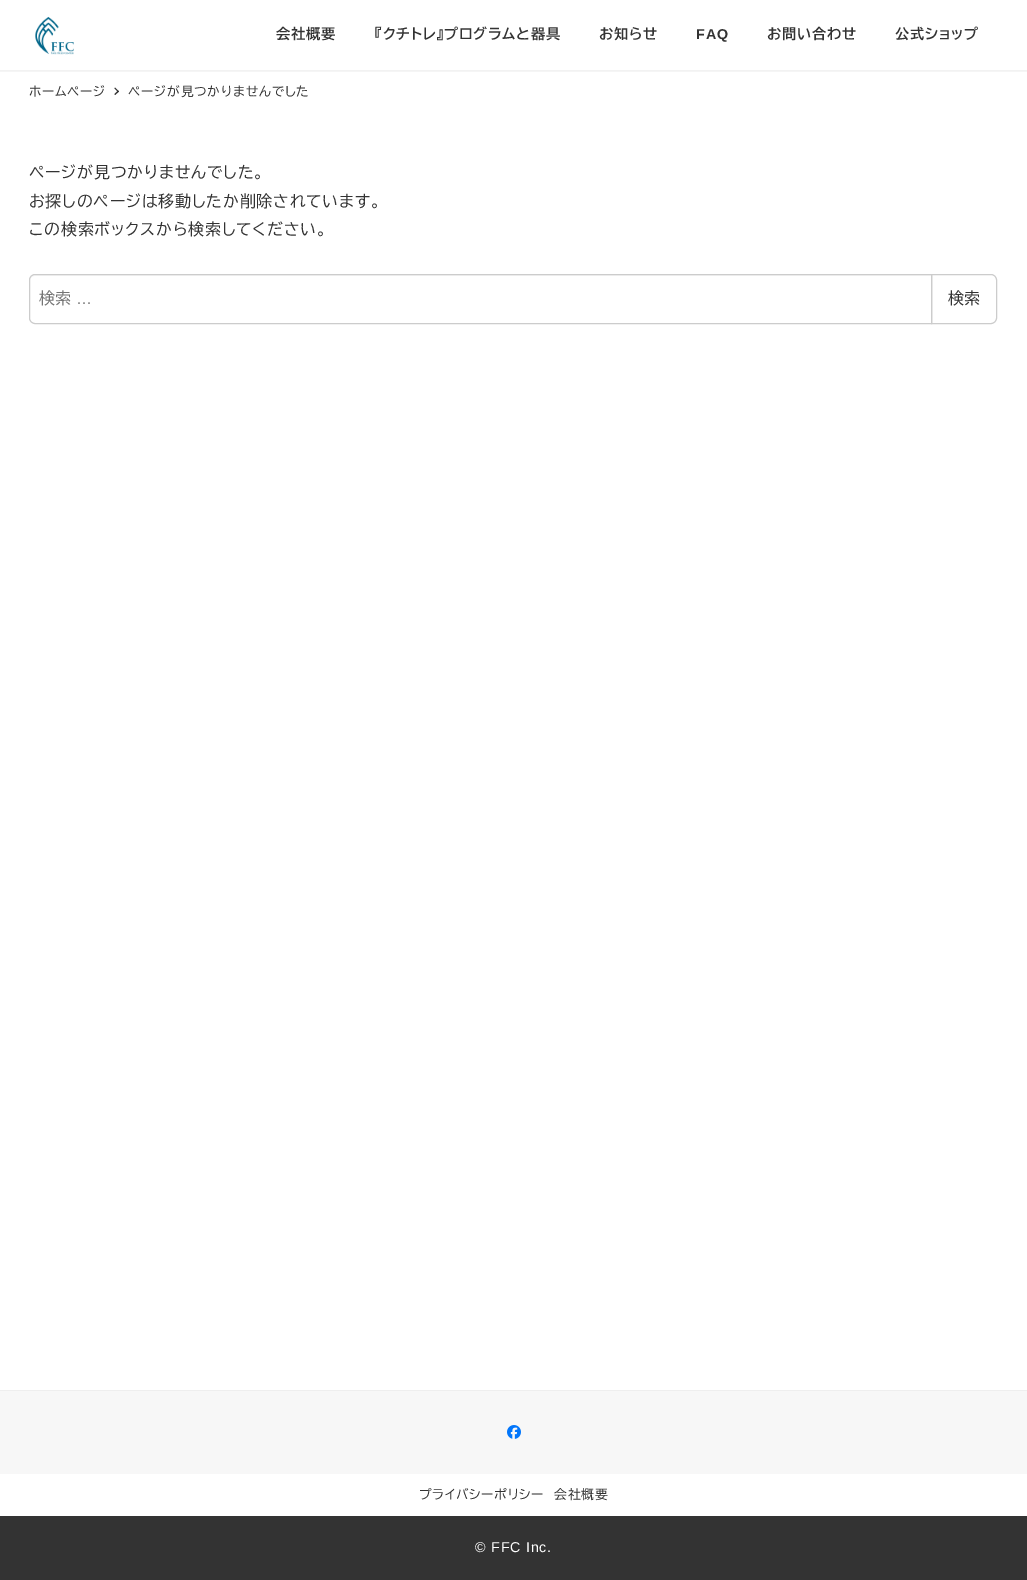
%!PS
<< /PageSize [1027 1580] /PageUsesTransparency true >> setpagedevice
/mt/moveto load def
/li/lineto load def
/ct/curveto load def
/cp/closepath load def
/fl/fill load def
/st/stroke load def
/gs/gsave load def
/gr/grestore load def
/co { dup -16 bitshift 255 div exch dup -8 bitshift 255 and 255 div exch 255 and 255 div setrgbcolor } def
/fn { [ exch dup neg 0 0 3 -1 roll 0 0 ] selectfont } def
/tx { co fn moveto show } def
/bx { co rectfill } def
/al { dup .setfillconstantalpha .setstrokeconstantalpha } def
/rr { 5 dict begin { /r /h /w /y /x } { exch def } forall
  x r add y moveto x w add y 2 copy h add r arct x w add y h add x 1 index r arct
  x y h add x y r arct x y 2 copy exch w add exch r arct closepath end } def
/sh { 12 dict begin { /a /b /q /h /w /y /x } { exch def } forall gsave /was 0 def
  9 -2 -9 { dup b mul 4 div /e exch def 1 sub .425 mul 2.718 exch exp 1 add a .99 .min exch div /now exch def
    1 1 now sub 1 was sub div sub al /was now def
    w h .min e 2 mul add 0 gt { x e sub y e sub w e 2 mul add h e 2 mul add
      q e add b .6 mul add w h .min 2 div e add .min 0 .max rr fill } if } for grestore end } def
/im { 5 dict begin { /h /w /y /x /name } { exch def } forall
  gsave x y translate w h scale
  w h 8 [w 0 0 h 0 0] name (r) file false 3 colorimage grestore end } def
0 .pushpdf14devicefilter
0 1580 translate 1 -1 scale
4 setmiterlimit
0 0 1027 1580 16#FFFFFF bx
gs
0 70 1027 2 rectclip
16#000000 co
-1 0 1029 72 0 1 .05 sh
gr
(media/1.raw) 35 16 39 39 im
16#333333 co
115 87.5 mt 119 91.5 li 118 92 li 114.5 88.5 li cp fl
118 90.5 mt 119 91.5 li 115 95 li 114.5 94 li cp fl
16#CCCCCC co
931.5 274.5 mt 991 274.5 li 994 274.5 996.5 277 996.5 280 ct 996.5 318 li 996.5 321 994 323.5 991 323.5 ct 931.5 323.5 li cp st
16#FFFFFF co
35 274 mt 932 274 li 932 324 li 35 324 li 31.5 324 29 321.5 29 318 ct 29 280 li 29 276.5 31.5 274 35 274 ct cp fl
16#F6F6F6 co
35 276 mt 931 276 li 931 275 li 35 275 li 32 275 30 278 30 281 ct 30 278 32 276 35 276 ct cp fl
16#CCCCCC co
35 274.5 mt 931.5 274.5 li 931.5 323.5 li 35 323.5 li 32 323.5 29.5 321 29.5 318 ct 29.5 280 li 29.5 277 32 274.5 35 274.5 ct cp st
0 1390 1027 1 16#EEEEEE bx
0 1391 1027 83 16#F7F7F7 bx
(media/2.raw) 507 1425 14 14 im
0 1516 1027 64 16#333333 bx
/BIZUDPGothic-Bold 14.25 fn
276 39 mt .8 0 (会社概要) ashow
375 39 mt .8 0 (『クチトレ』プログラムと器具) ashow
599 39 mt .8 0 (お知らせ) ashow
/LiberationSans-Bold 14.25 fn
696 39 mt .8 0 (FAQ) ashow
/BIZUDPGothic-Bold 14.25 fn
767 39 mt .8 0 (お問い合わせ) ashow
895 39 mt .8 0 (公式ショップ) ashow
/BIZUDPGothic-Regular 12.75 fn
29 96 mt .8 0 (ホームページ) ashow
128 96 mt .8 0 (ページが見つかりませんでした) ashow
/BIZUDPGothic-Regular 16 fn
29 178 mt .8 0 (ページが見つかりませんでした。) ashow
29 207 mt .8 0 (お探しのページは移動したか削除されています。) ashow
29 235 mt .8 0 (この検索ボックスから検索してください。) ashow
(検索) 39 304 /BIZUDPGothic-Regular 16 16#757575 tx
(…) 76 304 /LiberationSans-Regular 16 16#757575 tx
(検索) 948 304 /BIZUDPGothic-Regular 16 16#333333 tx
/BIZUDPGothic-Regular 12.75 fn
419 1499 mt .8 0 (プライバシーポリシー) ashow
554 1499 mt .8 0 (会社概要) ashow
/LiberationSans-Regular 14.25 fn
16#FFFFFF co
475 1552 mt .8 0 (© FFC Inc.) ashow
.poppdf14devicefilter showpage
